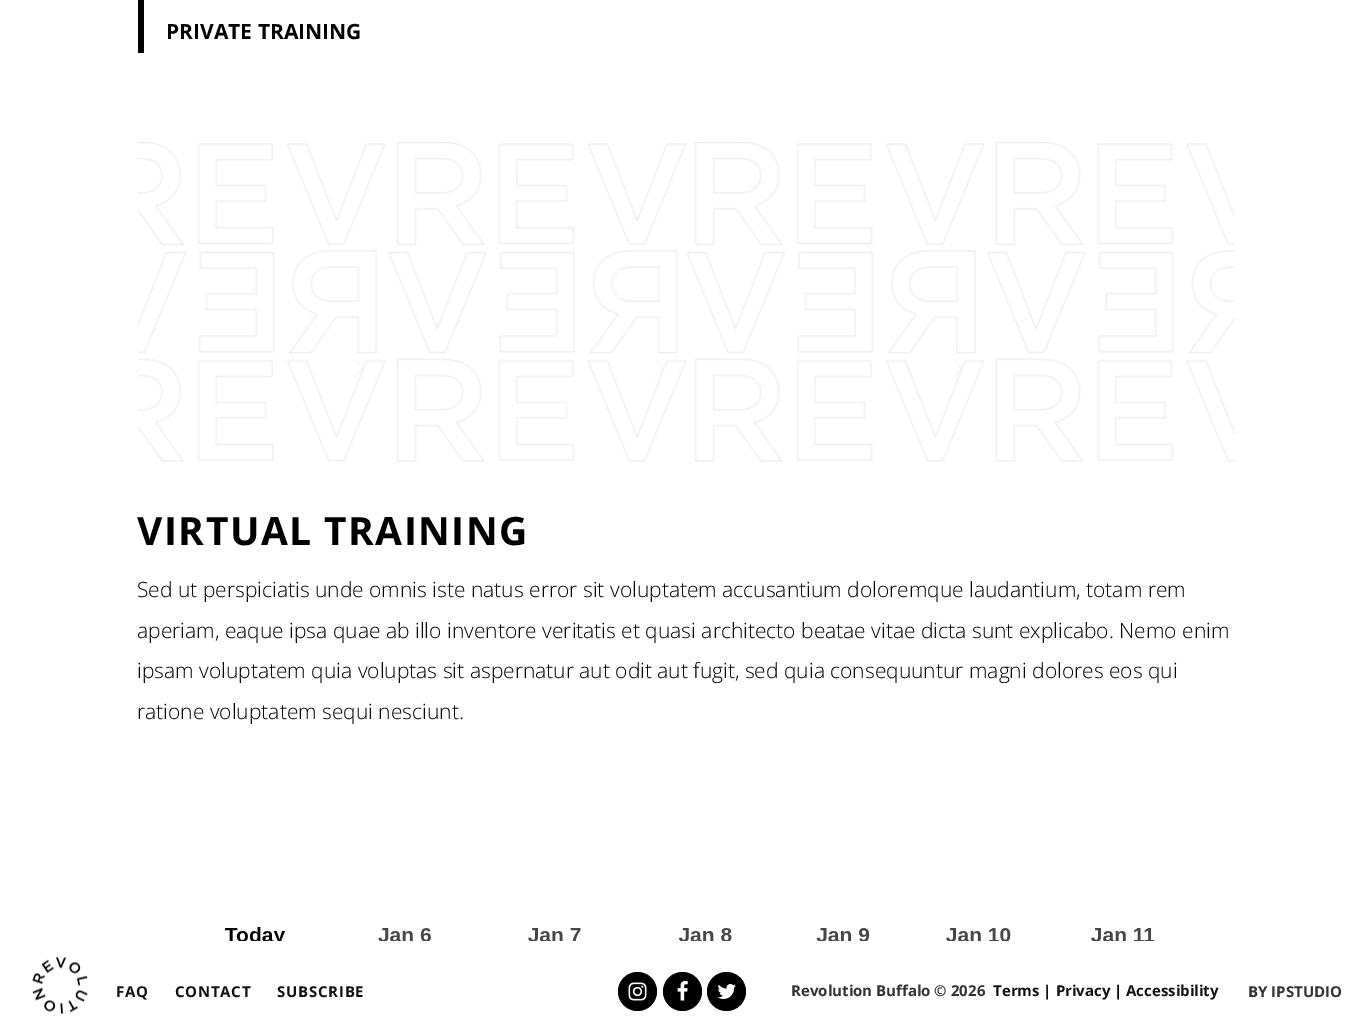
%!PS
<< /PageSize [1372 1026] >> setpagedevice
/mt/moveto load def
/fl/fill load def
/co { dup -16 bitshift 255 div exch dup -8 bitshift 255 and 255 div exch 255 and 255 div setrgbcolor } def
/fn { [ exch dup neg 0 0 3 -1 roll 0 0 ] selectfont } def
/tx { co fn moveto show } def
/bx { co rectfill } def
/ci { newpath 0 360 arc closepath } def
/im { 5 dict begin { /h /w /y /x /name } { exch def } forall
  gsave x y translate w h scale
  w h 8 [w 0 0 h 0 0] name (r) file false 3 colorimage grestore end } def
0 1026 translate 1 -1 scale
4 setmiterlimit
0 0 1372 1026 16#FFFFFF bx
138 0 6 53 16#000000 bx
(media/1.raw) 138 142 1097 320 im
(media/2.raw) 225 927 930 14 im
(media/3.raw) 32 956 56 59 im
637.5 991.5 19.5 ci fl
(media/4.raw) 628 982 19 19 im
682.5 991.5 19.5 ci fl
(media/5.raw) 677 981 11 20 im
726.5 991.5 19.5 ci fl
(media/6.raw) 717 984 19 15 im
(PRIVATE TRAINING) 166 39 /OpenSans-Bold 21 16#000000 tx
/OpenSans-Bold 39 fn
137 545 mt 1.5 0 (VIRTUAL TRAINING) ashow
(Sed ut perspiciatis unde omnis iste natus error sit voluptatem accusantium doloremque laudantium, totam rem) 137 597 /OpenSans-Light 21 16#000000 tx
(aperiam, eaque ipsa quae ab illo inventore veritatis et quasi architecto beatae vitae dicta sunt explicabo. Nemo enim) 137 638 /OpenSans-Light 21 16#000000 tx
(ipsam voluptatem quia voluptas sit aspernatur aut odit aut fugit, sed quia consequuntur magni dolores eos qui) 137 678 /OpenSans-Light 21 16#000000 tx
(ratione voluptatem sequi nesciunt.) 137 719 /OpenSans-Light 21 16#000000 tx
/OpenSans-Bold 15 fn
16#121212 co
116 997 mt .75 0 (FAQ) ashow
175 997 mt .75 0 (CONTACT) ashow
277 997 mt .75 0 (SUBSCRIBE) ashow
(Revolution Buffalo © 2026) 791 996 /OpenSans-Bold 15 16#333333 tx
(Terms | Privacy) 993 996 /OpenSans-Bold 15 16#121212 tx
(|) 1114 996 /OpenSans-Bold 15 16#000000 tx
(Accessibility) 1126 996 /OpenSans-Bold 15 16#121212 tx
(BY IPSTUDIO) 1248 997 /OpenSans-Bold 15 16#333333 tx
showpage
